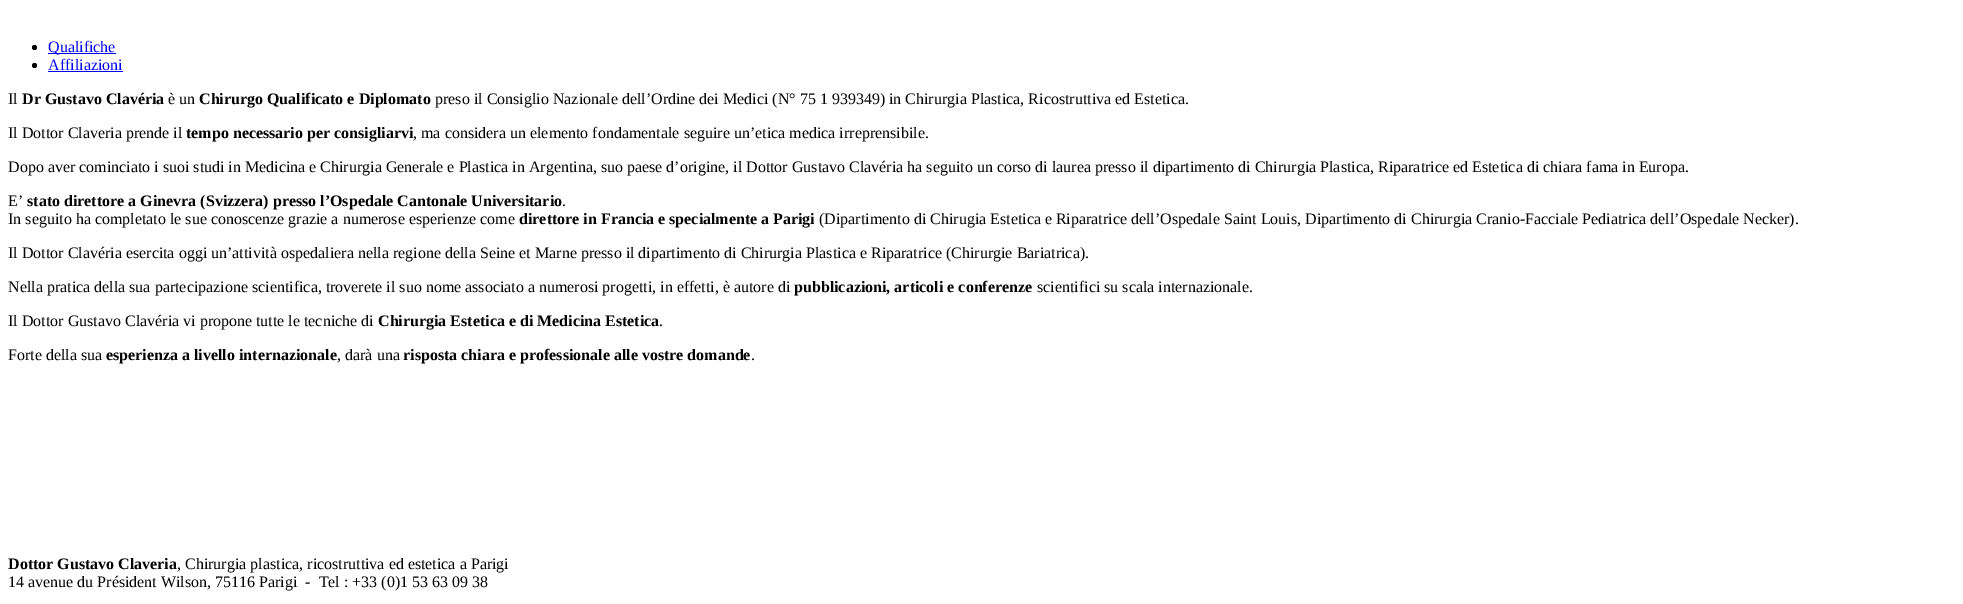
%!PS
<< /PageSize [1963 604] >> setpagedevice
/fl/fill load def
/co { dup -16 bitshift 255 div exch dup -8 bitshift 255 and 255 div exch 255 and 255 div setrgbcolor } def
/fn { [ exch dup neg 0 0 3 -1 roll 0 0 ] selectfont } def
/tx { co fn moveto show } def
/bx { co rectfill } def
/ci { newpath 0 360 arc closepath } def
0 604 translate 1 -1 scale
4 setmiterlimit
0 0 1963 604 16#FFFFFF bx
16#000000 co
34.5 47.5 2.5 ci fl
48 53 68 1 16#0000EE bx
16#000000 co
34.5 65.5 2.5 ci fl
48 71 75 1 16#0000EE bx
(Qualifiche) 48 52 /LiberationSerif-Regular 16 16#0000EE tx
(Affiliazioni) 48 70 /LiberationSerif-Regular 16 16#0000EE tx
(Il) 8 104 /LiberationSerif-Regular 16 16#000000 tx
(Dr Gustavo Clavéria) 22 104 /LiberationSerif-Bold 16 16#000000 tx
(è un) 168 104 /LiberationSerif-Regular 16 16#000000 tx
(Chirurgo Qualificato e Diplomato) 199 104 /LiberationSerif-Bold 16 16#000000 tx
(preso il Consiglio Nazionale dell’Ordine dei Medici \(N° 75 1 939349\) in Chirurgia Plastica, Ricostruttiva ed Estetica.) 435 104 /LiberationSerif-Regular 16 16#000000 tx
(Il Dottor Claveria prende il) 8 138 /LiberationSerif-Regular 16 16#000000 tx
(tempo necessario per consigliarvi) 186 138 /LiberationSerif-Bold 16 16#000000 tx
(, ma considera un elemento fondamentale seguire un’etica medica irreprensibile.) 413 138 /LiberationSerif-Regular 16 16#000000 tx
(Dopo aver cominciato i suoi studi in Medicina e Chirurgia Generale e Plastica in Argentina, suo paese d’origine, il Dottor Gustavo Clavéria ha seguito un corso di laurea presso il dipartimento di Chirurgia Plastica, Riparatrice ed Estetica di chiara fama in Europa.) 8 172 /LiberationSerif-Regular 16 16#000000 tx
(E’) 8 206 /LiberationSerif-Regular 16 16#000000 tx
(stato direttore a Ginevra \(Svizzera\) presso l’Ospedale Cantonale Universitario) 27 206 /LiberationSerif-Bold 16 16#000000 tx
(.) 562 206 /LiberationSerif-Regular 16 16#000000 tx
(In seguito ha completato le sue conoscenze grazie a numerose esperienze come) 8 224 /LiberationSerif-Regular 16 16#000000 tx
(direttore in Francia e specialmente a Parigi) 519 224 /LiberationSerif-Bold 16 16#000000 tx
(\(Dipartimento di Chirugia Estetica e Riparatrice dell’Ospedale Saint Louis, Dipartimento di Chirurgia Cranio-Facciale Pediatrica dell’Ospedale Necker\).) 819 224 /LiberationSerif-Regular 16 16#000000 tx
(Il Dottor Clavéria esercita oggi un’attività ospedaliera nella regione della Seine et Marne presso il dipartimento di Chirurgia Plastica e Riparatrice \(Chirurgie Bariatrica\).) 8 258 /LiberationSerif-Regular 16 16#000000 tx
(Nella pratica della sua partecipazione scientifica, troverete il suo nome associato a numerosi progetti, in effetti, è autore di) 8 292 /LiberationSerif-Regular 16 16#000000 tx
(pubblicazioni, articoli e conferenze) 794 292 /LiberationSerif-Bold 16 16#000000 tx
(scientifici su scala internazionale.) 1037 292 /LiberationSerif-Regular 16 16#000000 tx
(Il Dottor Gustavo Clavéria vi propone tutte le tecniche di) 8 326 /LiberationSerif-Regular 16 16#000000 tx
(Chirurgia Estetica e di Medicina Estetica) 378 326 /LiberationSerif-Bold 16 16#000000 tx
(.) 659 326 /LiberationSerif-Regular 16 16#000000 tx
(Forte della sua) 8 360 /LiberationSerif-Regular 16 16#000000 tx
(esperienza a livello internazionale) 106 360 /LiberationSerif-Bold 16 16#000000 tx
(, darà una) 337 360 /LiberationSerif-Regular 16 16#000000 tx
(risposta chiara e professionale alle vostre domande) 403 360 /LiberationSerif-Bold 16 16#000000 tx
(.) 751 360 /LiberationSerif-Regular 16 16#000000 tx
(Dottor Gustavo Claveria) 8 569 /LiberationSerif-Bold 16 16#000000 tx
(, Chirurgia plastica, ricostruttiva ed estetica a Parigi) 177 569 /LiberationSerif-Regular 16 16#000000 tx
(14 avenue du Président Wilson, 75116 Parigi  -  Tel : +33 \(0\)1 53 63 09 38) 8 587 /LiberationSerif-Regular 16 16#000000 tx
showpage
